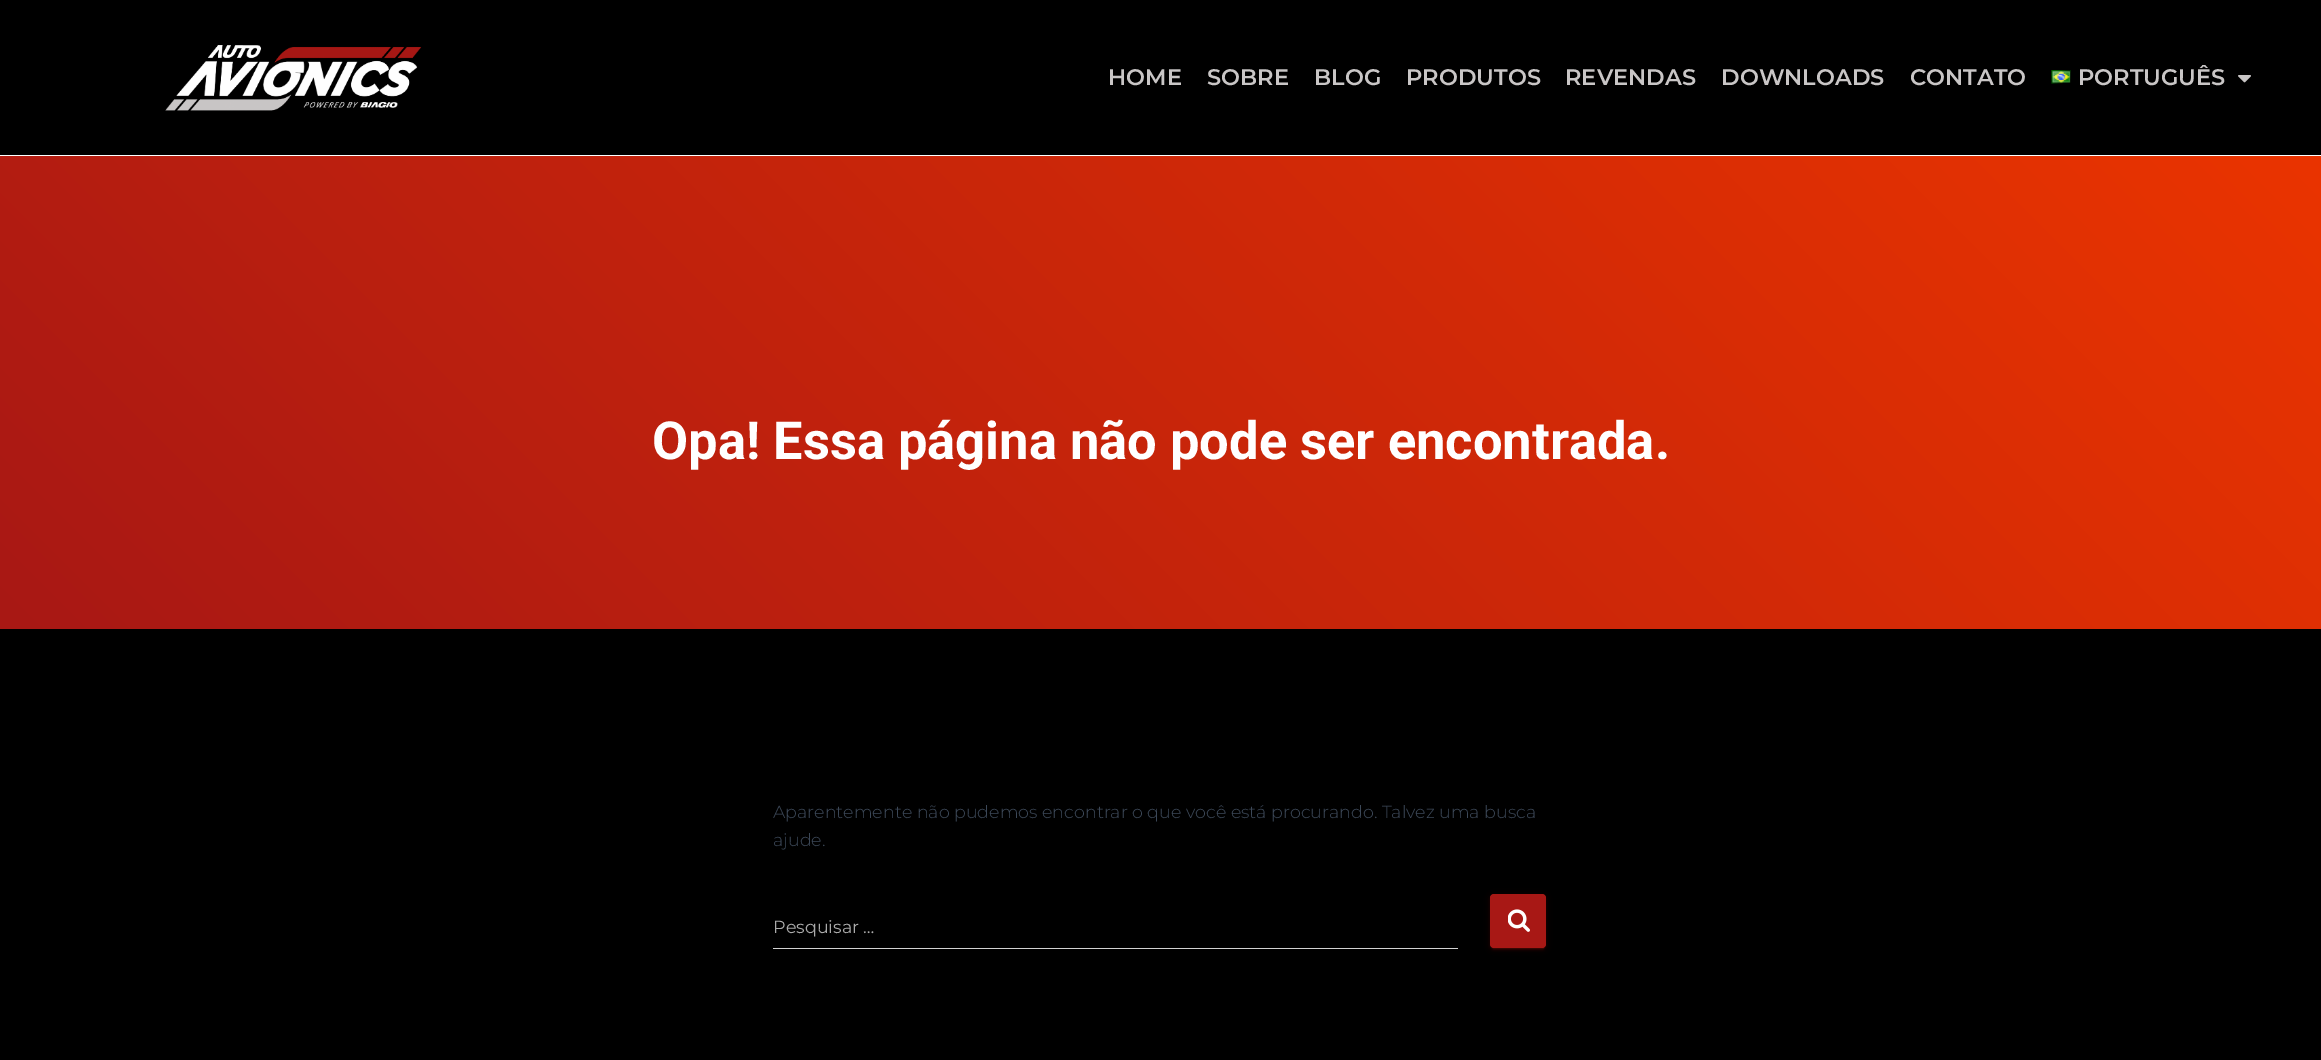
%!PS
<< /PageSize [2321 1060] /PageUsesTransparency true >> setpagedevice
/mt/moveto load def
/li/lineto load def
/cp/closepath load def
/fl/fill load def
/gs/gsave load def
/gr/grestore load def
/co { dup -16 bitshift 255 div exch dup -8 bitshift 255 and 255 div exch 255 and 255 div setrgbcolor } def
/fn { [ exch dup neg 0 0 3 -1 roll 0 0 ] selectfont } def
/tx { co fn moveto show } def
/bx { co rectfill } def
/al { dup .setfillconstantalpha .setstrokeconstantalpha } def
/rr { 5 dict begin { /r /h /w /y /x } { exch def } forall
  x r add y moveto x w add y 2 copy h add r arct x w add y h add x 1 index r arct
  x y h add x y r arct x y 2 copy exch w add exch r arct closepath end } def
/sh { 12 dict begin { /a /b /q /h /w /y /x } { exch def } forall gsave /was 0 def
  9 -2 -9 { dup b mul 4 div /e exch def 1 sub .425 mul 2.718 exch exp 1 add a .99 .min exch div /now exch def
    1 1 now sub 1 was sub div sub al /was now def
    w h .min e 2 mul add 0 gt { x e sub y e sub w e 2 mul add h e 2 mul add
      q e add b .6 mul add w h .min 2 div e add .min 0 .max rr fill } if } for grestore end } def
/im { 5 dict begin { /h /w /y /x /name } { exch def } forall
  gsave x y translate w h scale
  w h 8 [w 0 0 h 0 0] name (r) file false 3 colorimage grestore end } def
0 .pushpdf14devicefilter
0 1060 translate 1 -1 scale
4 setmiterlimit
0 0 2321 1060 16#000000 bx
0 155 2321 1 16#FFFFFF bx
(media/1.raw) 165 45 257 66 im
(media/2.raw) 2051 70 20 14 im
(media/3.raw) 2238 75 13 8 im
gs 0 156 mt 2321 156 li 2321 629 li 0 629 li cp clip newpath
<< /ShadingType 2 /ColorSpace /DeviceRGB /Coords [462 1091 1859 -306] /Extend [true true] /Function << /FunctionType 2 /Domain [0 1] /C0 [.659 .094 .082] /C1 [.918 .204 0] /N 1 >> >> shfill gr
773 948 685 1 16#D2D2D2 bx
16#A81815 co
1490 895 56 54 4 3 .12 sh
1493 900 51 49 1 .5 .2 sh
1490 896 56 54 4 1 .14 sh
1490 894 56 54 4 rr fl
(media/4.raw) 1508 909 22 23 im
(HOME) 1108 85 /Montserrat-SemiBold 22.5 16#C9C6C6 tx
(SOBRE) 1207 85 /Montserrat-SemiBold 22.5 16#C9C6C6 tx
(BLOG) 1314 85 /Montserrat-SemiBold 22.5 16#C9C6C6 tx
(PRODUTOS) 1406 85 /Montserrat-SemiBold 22.5 16#C9C6C6 tx
(REVENDAS) 1565 85 /Montserrat-SemiBold 22.5 16#C9C6C6 tx
(DOWNLOADS) 1721 85 /Montserrat-SemiBold 22.5 16#C9C6C6 tx
(CONTATO) 1910 85 /Montserrat-SemiBold 22.5 16#C9C6C6 tx
(PORTUGUÊS) 2078 85 /Montserrat-SemiBold 22.5 16#C9C6C6 tx
(Opa! Essa página não pode ser encontrada.) 652 459 /Roboto-Bold 52.5 16#FFFFFF tx
(Aparentemente não pudemos encontrar o que você está procurando. Talvez uma busca) 773 818 /Montserrat-Light 17.5 16#3C4858 tx
(ajude.) 773 846 /Montserrat-Light 17.5 16#3C4858 tx
(Pesquisar …) 773 933 /Montserrat-Regular 17.5 16#AAAAAA tx
.poppdf14devicefilter showpage
